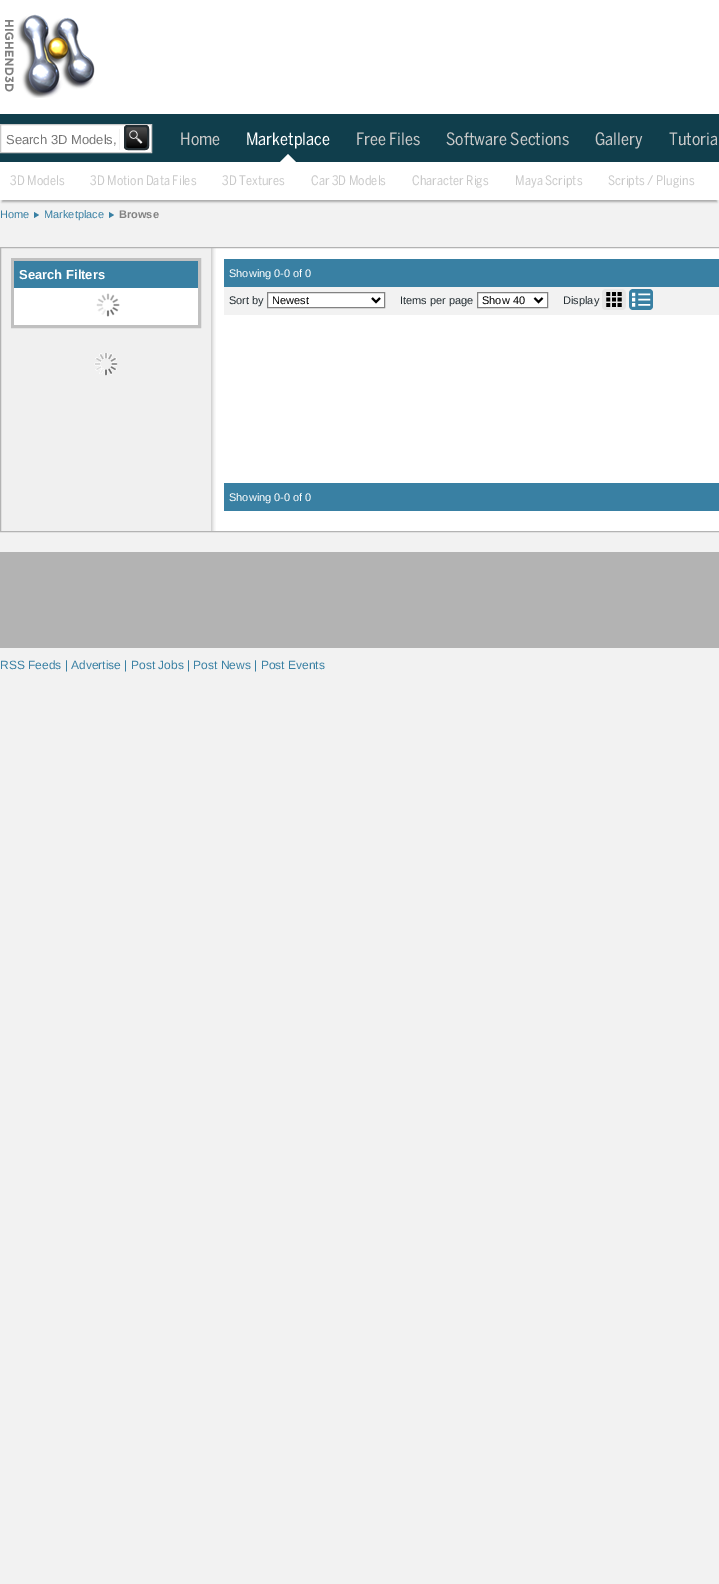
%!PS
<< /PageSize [719 1584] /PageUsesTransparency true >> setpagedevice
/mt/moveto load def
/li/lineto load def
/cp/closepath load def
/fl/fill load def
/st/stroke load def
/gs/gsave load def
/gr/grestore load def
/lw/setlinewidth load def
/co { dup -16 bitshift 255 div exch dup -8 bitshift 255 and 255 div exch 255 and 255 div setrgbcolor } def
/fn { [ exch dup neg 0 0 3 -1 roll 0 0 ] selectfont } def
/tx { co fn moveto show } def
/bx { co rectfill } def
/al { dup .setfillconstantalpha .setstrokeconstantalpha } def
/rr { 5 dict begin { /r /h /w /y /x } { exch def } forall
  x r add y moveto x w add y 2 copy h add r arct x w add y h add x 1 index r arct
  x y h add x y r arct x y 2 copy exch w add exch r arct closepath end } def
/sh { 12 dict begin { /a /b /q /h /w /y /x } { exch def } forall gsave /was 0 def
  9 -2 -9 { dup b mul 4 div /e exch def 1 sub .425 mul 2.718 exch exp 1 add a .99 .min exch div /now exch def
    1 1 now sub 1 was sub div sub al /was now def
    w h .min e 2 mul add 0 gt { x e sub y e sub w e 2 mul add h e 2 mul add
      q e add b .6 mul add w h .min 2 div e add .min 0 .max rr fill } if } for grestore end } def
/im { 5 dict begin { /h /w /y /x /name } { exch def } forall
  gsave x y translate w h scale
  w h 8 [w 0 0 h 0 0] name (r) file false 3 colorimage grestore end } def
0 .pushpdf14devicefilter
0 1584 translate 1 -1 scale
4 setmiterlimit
0 0 719 1584 16#F2F2F2 bx
0 0 719 114 16#FFFFFF bx
(media/1.raw) 5 14 90 84 im
0 114 719 48 16#103E4C bx
16#FFFFFF co
296 162 mt 280 162 li 288 154 li cp fl
16#000000 co
2 168 715 34 0 1 .3 sh
0 162 719 38 16#FFFFFF bx
.5 124.5 mt 151.5 124.5 li 151.5 152.5 li .5 152.5 li cp gs fl gr
16#C9C9C9 co
st
119 129 1 21 16#F2F2F2 bx
(media/2.raw) 124 125 25 25 im
16#242E33 co
2 lw
125 126 23 23 3 rr st
(media/3.raw) 34 212 5 6 im
(media/3.raw) 109 212 5 6 im
216 248 503 283 16#FFFFFF bx
(media/4.raw) 1 248 215 283 im
16#B3B3B3 co
1 lw
.5 247.5 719 284 rectstroke
16#C0C0C0 co
3 lw
12.5 259.5 187 67 rectstroke
14 261 184 27 16#3980A3 bx
14 288 184 37 16#FFFFFF bx
(media/5.raw) 96 293 24 24 im
(media/6.raw) 94 353 24 23 im
224 259 495 28 16#3980A3 bx
224 287 495 28 16#F2F2F2 bx
16#FFFFFF co
267.5 292.5 mt 384.5 292.5 li 384.5 307.5 li 267.5 307.5 li cp gs fl gr
16#828282 co
1 lw
st
16#000000 co
2 lw
372 298 mt 376 302 li 380 298 li st
16#FFFFFF co
477.5 292.5 mt 547.5 292.5 li 547.5 307.5 li 477.5 307.5 li cp gs fl gr
16#828282 co
1 lw
st
16#000000 co
2 lw
534.5 298 mt 538.5 302 li 542.5 298 li st
(media/7.raw) 602 289 24 21 im
(media/8.raw) 629 289 24 21 im
224 483 495 28 16#3980A3 bx
0 552 719 96 16#B3B3B3 bx
(Home) 180 145 /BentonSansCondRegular-Regular 17 16#C9C9C9 tx
(Marketplace) 246 145 /BentonSansCondRegular-Regular 17 16#FFFFFF tx
(Free Files) 356 145 /BentonSansCondRegular-Regular 17 16#C9C9C9 tx
(Software Sections) 446 145 /BentonSansCondRegular-Regular 17 16#C9C9C9 tx
(Gallery) 595 145 /BentonSansCondRegular-Regular 17 16#C9C9C9 tx
(Tutoria) 669 145 /BentonSansCondRegular-Regular 17 16#C9C9C9 tx
(3D Models) 10 185 /BentonSansCondRegular-Regular 13 16#C9C9C9 tx
(3D Motion Data Files) 90 185 /BentonSansCondRegular-Regular 13 16#C9C9C9 tx
(3D Textures) 222 185 /BentonSansCondRegular-Regular 13 16#C9C9C9 tx
(Car 3D Models) 311 185 /BentonSansCondRegular-Regular 13 16#C9C9C9 tx
(Character Rigs) 412 185 /BentonSansCondRegular-Regular 13 16#C9C9C9 tx
(Maya Scripts) 515 185 /BentonSansCondRegular-Regular 13 16#C9C9C9 tx
(Scripts / Plugins) 608 185 /BentonSansCondRegular-Regular 13 16#C9C9C9 tx
(Search 3D Models,) 6 144 /LiberationSans-Regular 13 16#757575 tx
(Home) 0 218 /LiberationSans-Regular 11 16#3980A3 tx
(Marketplace) 44 218 /LiberationSans-Regular 11 16#3980A3 tx
(Browse) 119 218 /LiberationSans-Bold 11 16#828282 tx
(Search Filters) 19 279 /LiberationSans-Bold 13 16#FFFFFF tx
(Showing 0-0 of 0) 229 277 /LiberationSans-Regular 11 16#FFFFFF tx
(Sort by) 229 304 /LiberationSans-Regular 11 16#242E33 tx
(Newest) 272 304 /LiberationSans-Regular 11 16#000000 tx
(Items per page) 400 304 /LiberationSans-Regular 11 16#242E33 tx
(Show 40) 482 304 /LiberationSans-Regular 11 16#000000 tx
(Display) 563 304 /LiberationSans-Regular 11 16#242E33 tx
(Showing 0-0 of 0) 229 501 /LiberationSans-Regular 11 16#FFFFFF tx
(RSS Feeds | Advertise | Post Jobs | Post News | Post Events) 0 669 /LiberationSans-Regular 12 16#3980A3 tx
.poppdf14devicefilter showpage
